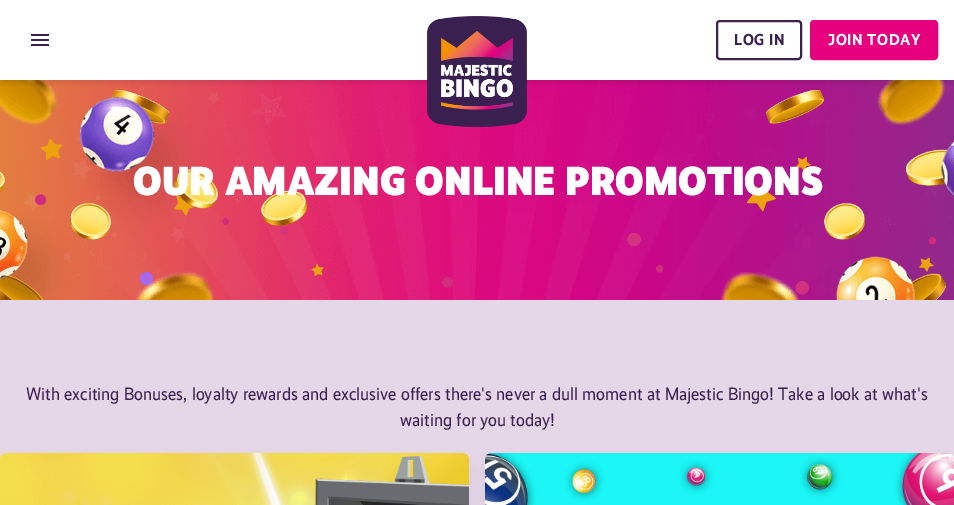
%!PS
<< /PageSize [954 505] /PageUsesTransparency true >> setpagedevice
/mt/moveto load def
/fl/fill load def
/st/stroke load def
/gs/gsave load def
/gr/grestore load def
/lw/setlinewidth load def
/co { dup -16 bitshift 255 div exch dup -8 bitshift 255 and 255 div exch 255 and 255 div setrgbcolor } def
/fn { [ exch dup neg 0 0 3 -1 roll 0 0 ] selectfont } def
/tx { co fn moveto show } def
/bx { co rectfill } def
/al { dup .setfillconstantalpha .setstrokeconstantalpha } def
/rr { 5 dict begin { /r /h /w /y /x } { exch def } forall
  x r add y moveto x w add y 2 copy h add r arct x w add y h add x 1 index r arct
  x y h add x y r arct x y 2 copy exch w add exch r arct closepath end } def
/sh { 12 dict begin { /a /b /q /h /w /y /x } { exch def } forall gsave /was 0 def
  9 -2 -9 { dup b mul 4 div /e exch def 1 sub .425 mul 2.718 exch exp 1 add a .99 .min exch div /now exch def
    1 1 now sub 1 was sub div sub al /was now def
    w h .min e 2 mul add 0 gt { x e sub y e sub w e 2 mul add h e 2 mul add
      q e add b .6 mul add w h .min 2 div e add .min 0 .max rr fill } if } for grestore end } def
/im { 5 dict begin { /h /w /y /x /name } { exch def } forall
  gsave x y translate w h scale
  w h 8 [w 0 0 h 0 0] name (r) file false 3 colorimage grestore end } def
0 .pushpdf14devicefilter
0 505 translate 1 -1 scale
4 setmiterlimit
0 0 954 505 16#FFFFFF bx
(media/3.raw) 0 80 954 220 im
gs
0 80 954 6 rectclip
16#000000 co
1 5 952 78 0 3 .1 sh
gr
(media/1.raw) 31 34 18 12 im
(media/2.raw) 427 16 100 111 im
16#3B2151 co
2 lw
717 21 84 38 3 rr st
16#E6007E co
811 21 126 38 3 rr gs fl gr
st
0 300 954 205 16#E6D7E8 bx
16#000000 co
3 466 463 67 5 7.5 .1 sh
488 466 463 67 5 7.5 .1 sh
(media/4.raw) 0 453 469 52 im
(media/5.raw) 485 453 469 52 im
/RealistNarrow-Bold 16 fn
16#3B2151 co
734 45 mt .5 0 (LOG IN) ashow
16#FFFFFF co
828 45 mt .5 0 (JOIN TODAY) ashow
(OUR AMAZING ONLINE PROMOTIONS) 133 195 /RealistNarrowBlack-Black 41.1 16#FFFFFF tx
(With exciting Bonuses, loyalty rewards and exclusive offers there's never a dull moment at Majestic Bingo! Take a look at what's) 26 400 /RealistNarrow-Regular 18 16#3B2151 tx
(waiting for you today!) 400 426 /RealistNarrow-Regular 18 16#3B2151 tx
.poppdf14devicefilter showpage
